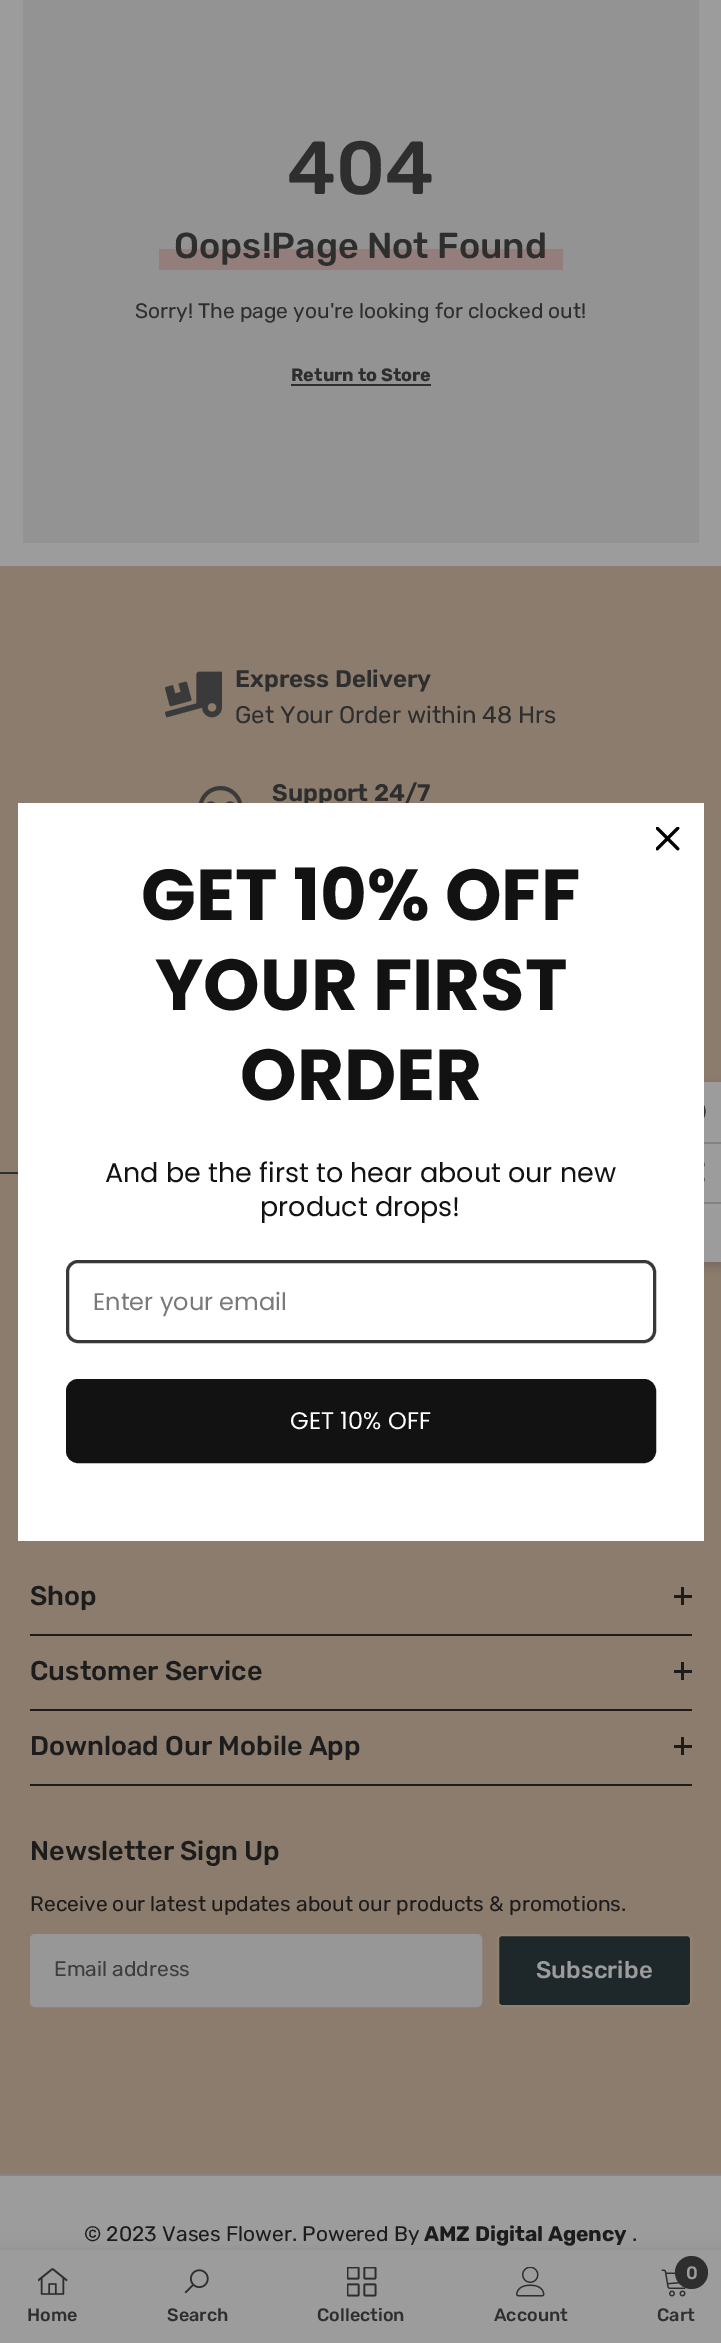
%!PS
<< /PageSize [721 2343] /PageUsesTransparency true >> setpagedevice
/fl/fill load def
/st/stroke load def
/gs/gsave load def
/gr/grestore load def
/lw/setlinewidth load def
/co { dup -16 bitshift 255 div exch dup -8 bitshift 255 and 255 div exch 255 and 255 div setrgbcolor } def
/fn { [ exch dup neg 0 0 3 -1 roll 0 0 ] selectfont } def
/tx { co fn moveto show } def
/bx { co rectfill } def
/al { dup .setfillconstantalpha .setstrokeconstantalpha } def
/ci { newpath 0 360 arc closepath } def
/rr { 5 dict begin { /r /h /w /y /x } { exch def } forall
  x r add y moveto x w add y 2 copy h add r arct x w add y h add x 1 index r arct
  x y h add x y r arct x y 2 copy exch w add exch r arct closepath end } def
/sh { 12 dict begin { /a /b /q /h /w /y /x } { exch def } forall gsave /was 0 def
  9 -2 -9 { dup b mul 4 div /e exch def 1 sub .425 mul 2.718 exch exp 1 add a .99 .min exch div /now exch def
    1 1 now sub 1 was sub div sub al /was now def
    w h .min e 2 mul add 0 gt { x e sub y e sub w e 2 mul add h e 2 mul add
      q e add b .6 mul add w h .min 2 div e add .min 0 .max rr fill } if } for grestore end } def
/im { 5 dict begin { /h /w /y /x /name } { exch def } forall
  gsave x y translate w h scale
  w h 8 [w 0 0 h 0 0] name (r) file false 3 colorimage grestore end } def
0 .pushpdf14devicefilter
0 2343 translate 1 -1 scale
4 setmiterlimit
0 0 721 2343 16#9C9C9C bx
23 0 676 543 16#939393 bx
159 249 404 21 16#947E7C bx
291 384 140 2 16#2E2E2E bx
0 566 721 606 16#8B7C6D bx
(media/1.raw) 165 671 57 47 im
(media/2.raw) 198 786 45 17 im
0 1174 721 1000 16#8B7C6D bx
0 1172 18 2 16#303030 bx
30 1634 662 2 16#1C1C1C bx
681 1587 3 18 16#1C1C1C bx
674 1595 18 3 16#1C1C1C bx
30 1709 662 2 16#1C1C1C bx
681 1662 3 18 16#1C1C1C bx
674 1670 18 3 16#1C1C1C bx
30 1784 662 2 16#1C1C1C bx
681 1737 3 18 16#1C1C1C bx
674 1745 18 3 16#1C1C1C bx
16#979797 co
31 1935 450 71 4 rr gs fl gr
2 lw
st
16#1E2729 co
498 1935 193 71 4 rr gs fl gr
16#928170 co
st
0 2174 721 2 16#868686 bx
16#1C1C1C co
0 2250 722 93 0 7 .12 sh
0 2250 721 93 16#9C9C9C bx
(media/3.raw) 38 2268 30 27 im
(media/4.raw) 184 2269 25 25 im
(media/5.raw) 347 2267 30 30 im
(media/6.raw) 516 2267 29 30 im
(media/7.raw) 661 2269 25 28 im
16#2E2E2E co
691.5 2272.5 16.5 ci fl
16#1C1C1C co
662 1086 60 180 0 5 .2 sh
704 1082 17 180 16#9C9C9C bx
(media/9.raw) 704 1105 2 13 im
704 1142 17 2 16#828282 bx
(media/10.raw) 704 1162 1 20 im
704 1202 17 2 16#828282 bx
(404) 287 194 /Rubik-Medium 75 16#2E2E2E tx
(Oops!Page Not Found) 174 258 /Rubik-Medium 36 16#2E2E2E tx
(Sorry! The page you're looking for clocked out!) 135 318 /Rubik-Regular 21 16#2E2E2E tx
(Return to Store) 291 381 /Rubik-Bold 18 16#2E2E2E tx
(Express Delivery) 235 687 /Rubik-SemiBold 24 16#2E2E2E tx
(Get Your Order within 48 Hrs) 235 723 /Rubik-Regular 24 16#2E2E2E tx
(Support 24/7) 272 801 /Rubik-SemiBold 24 16#2E2E2E tx
(Shop) 30 1605 /Rubik-Medium 27 16#1C1C1C tx
(Customer Service) 30 1680 /Rubik-Medium 27 16#1C1C1C tx
(Download Our Mobile App) 30 1755 /Rubik-Medium 27 16#1C1C1C tx
(Newsletter Sign Up) 30 1860 /Rubik-Medium 27 16#1C1C1C tx
(Receive our latest updates about our products & promotions.) 30 1911 /Rubik-Regular 21 16#1C1C1C tx
(Email address) 54 1976 /Rubik-Regular 21 16#3D3D3D tx
(Subscribe) 536 1978 /Rubik-Medium 24 16#9C9C9C tx
(© 2023 Vases Flower. Powered By) 84 2241 /Rubik-Regular 21 16#1C1C1C tx
(AMZ Digital Agency) 424 2241 /Rubik-Bold 21 16#1C1C1C tx
(.) 632 2241 /Rubik-Regular 21 16#1C1C1C tx
(Home) 27 2321 /Rubik-Medium 18 16#2E2E2E tx
(Search) 167 2321 /Rubik-Medium 18 16#2E2E2E tx
(Collection) 317 2321 /Rubik-Medium 18 16#2E2E2E tx
(Account) 494 2321 /Rubik-Medium 18 16#2E2E2E tx
(0) 686 2279 /Rubik-Medium 18 16#9C9C9C tx
(Cart) 657 2321 /Rubik-Medium 18 16#2E2E2E tx
18 803 686 738 16#FFFFFF bx
(media/8.raw) 656 827 24 24 im
(GET 10% OFF) 141 920 /Poppins-Bold 72 16#121212 tx
(YOUR FIRST) 155 1010 /Poppins-Bold 72 16#121212 tx
(ORDER) 240 1100 /Poppins-Bold 72 16#121212 tx
(And be the first to hear about our new) 105 1182 /Poppins-Regular 27 16#121212 tx
(product drops!) 260 1216 /Poppins-Regular 27 16#121212 tx
16#383838 co
3 lw
67.5 1261.5 587 80 10.5 rr st
(Enter your email) 93 1310 /Poppins-Regular 24 16#797979 tx
16#121212 co
67.5 1380.5 587 81 10.5 rr gs fl gr
st
(GET 10% OFF) 290 1429 /Poppins-Regular 24 16#FFFFFF tx
.poppdf14devicefilter showpage
